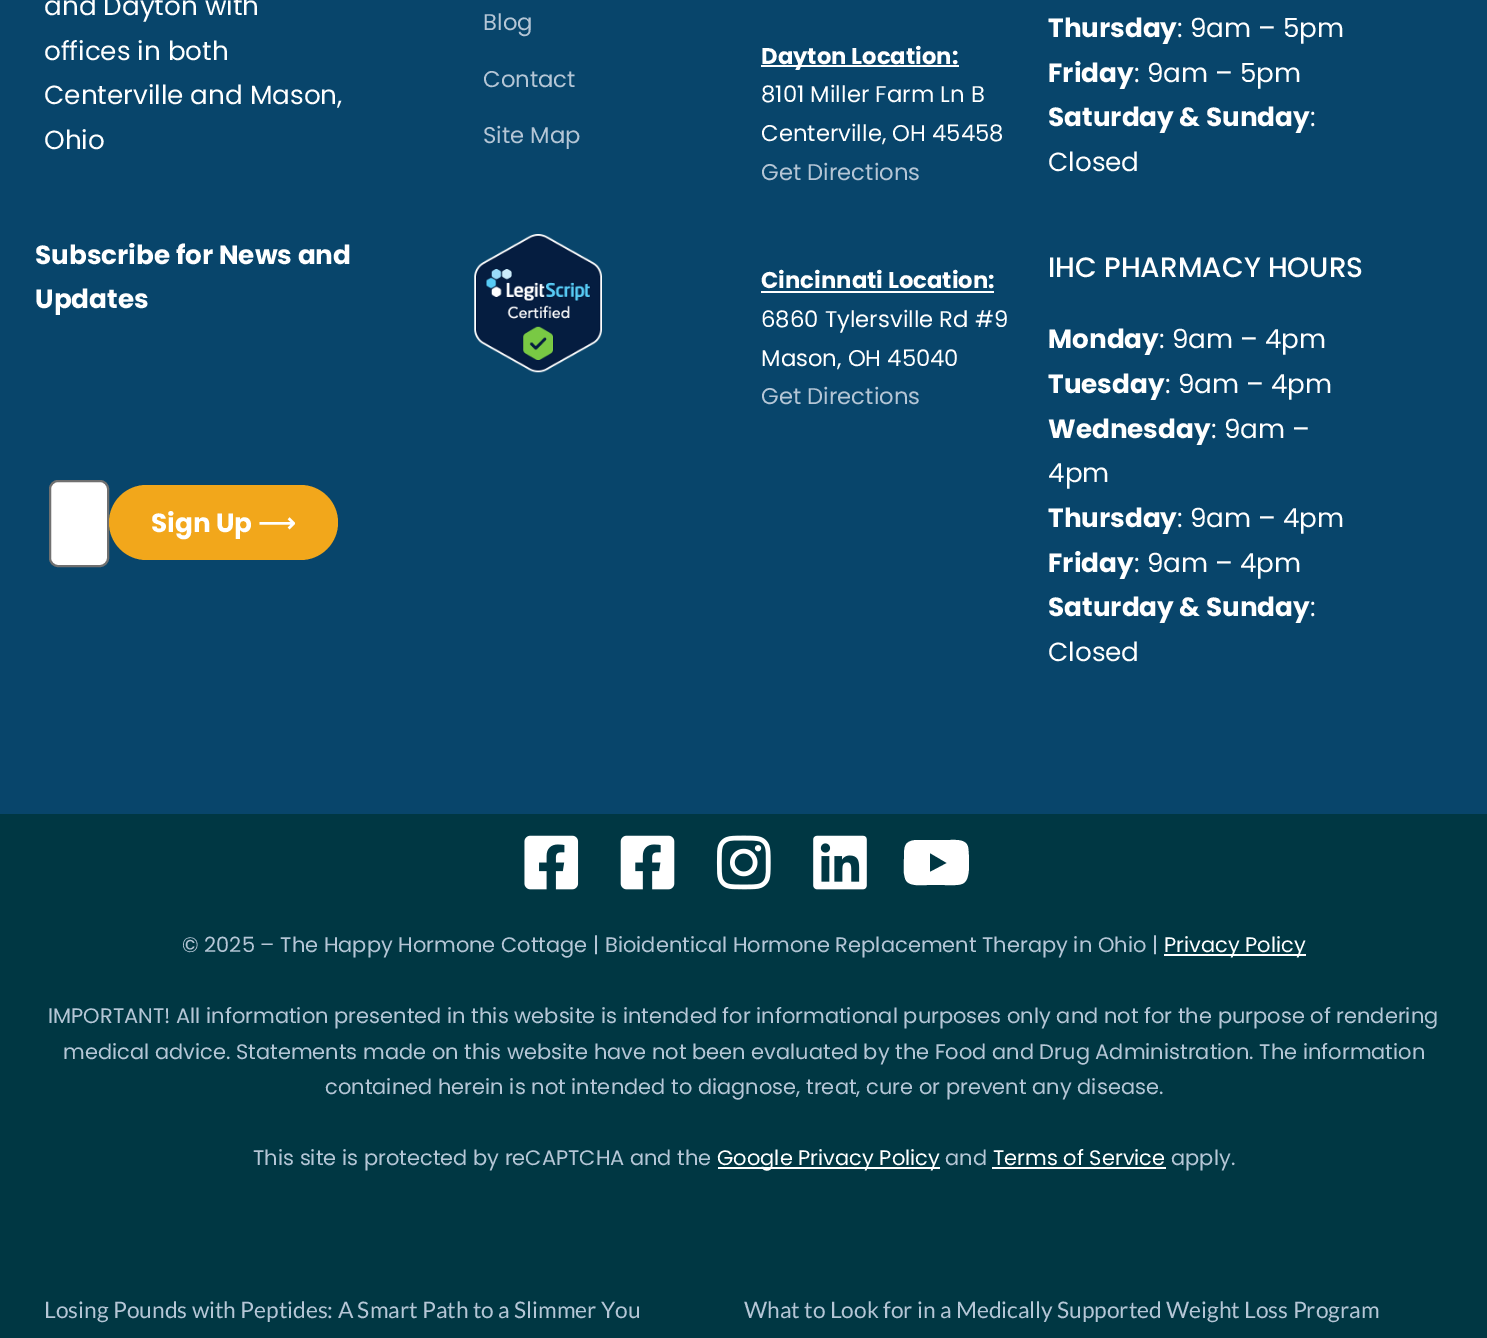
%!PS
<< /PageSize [1487 1338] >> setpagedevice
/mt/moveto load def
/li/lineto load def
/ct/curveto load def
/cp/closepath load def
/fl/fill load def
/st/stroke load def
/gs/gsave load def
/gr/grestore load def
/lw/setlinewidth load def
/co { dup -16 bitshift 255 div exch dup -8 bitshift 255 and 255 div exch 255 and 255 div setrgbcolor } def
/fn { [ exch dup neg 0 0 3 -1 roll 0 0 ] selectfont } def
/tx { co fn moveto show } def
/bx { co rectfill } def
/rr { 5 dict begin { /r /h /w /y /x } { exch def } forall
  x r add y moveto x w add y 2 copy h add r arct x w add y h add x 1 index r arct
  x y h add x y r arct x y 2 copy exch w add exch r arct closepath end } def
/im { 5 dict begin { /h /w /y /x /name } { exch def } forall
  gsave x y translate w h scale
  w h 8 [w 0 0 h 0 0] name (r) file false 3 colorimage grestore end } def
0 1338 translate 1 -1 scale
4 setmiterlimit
0 0 1487 1338 16#08456B bx
16#FFFFFF co
50 481 58 85 8 rr gs fl gr
16#707070 co
2 lw
st
16#F2A71B co
109 485 229 75 37.5 rr fl
(media/1.raw) 474 234 128 139 im
761 65 198 2 16#FFFFFF bx
761 291 233 2 16#FFFFFF bx
0 814 1487 524 16#003743 bx
(media/2.raw) 524 835 55 55 im
(media/3.raw) 620 835 55 55 im
(media/4.raw) 716 835 55 55 im
(media/5.raw) 813 835 54 55 im
16#FFFFFF co
968 847 mt 969 853 969 860 969 867 ct 968 887 962 885 944 885 ct 927 885 li 921 885 907 887 905 878 ct 903 872 904 865 904 858 ct 904 847 904 841 916 840 ct 931 840 li 950 840 li 956 840 966 839 968 847 ct cp 930 872 mt 947 863 li 930 853 li cp fl
1164 954 142 2 16#FFFFFF bx
718 1167 222 2 16#FFFFFF bx
992 1167 174 2 16#FFFFFF bx
(and Dayton with) 44 15 /Poppins-Regular 26.25 16#FFFFFF tx
(offices in both) 44 60 /Poppins-Regular 26.25 16#FFFFFF tx
(Centerville and Mason,) 44 104 /Poppins-Regular 26.25 16#FFFFFF tx
(Ohio) 44 149 /Poppins-Regular 26.25 16#FFFFFF tx
(Subscribe for News and) 35 264 /Poppins-Bold 26.25 16#FFFFFF tx
(Updates) 35 308 /Poppins-Bold 26.25 16#FFFFFF tx
(Sign Up) 151 532 /Poppins-Bold 26.25 16#FFFFFF tx
(⟶) 258 532 /DejaVuSans-Bold 26.25 16#FFFFFF tx
(Blog) 483 30 /Poppins-Regular 22.75 16#B5C6D6 tx
(Contact) 483 87 /Poppins-Regular 22.75 16#B5C6D6 tx
(Site Map) 483 143 /Poppins-Regular 22.75 16#B5C6D6 tx
(Dayton Location:) 761 64 /Poppins-Bold 22.75 16#FFFFFF tx
(8101 Miller Farm Ln B) 761 102 /Poppins-Regular 22.75 16#FFFFFF tx
(Centerville, OH 45458) 761 141 /Poppins-Regular 22.75 16#FFFFFF tx
(Get Directions) 761 180 /Poppins-Regular 22.75 16#B5C6D6 tx
(Cincinnati Location:) 761 288 /Poppins-Bold 22.75 16#FFFFFF tx
(6860 Tylersville Rd #9) 761 327 /Poppins-Regular 22.75 16#FFFFFF tx
(Mason, OH 45040) 761 366 /Poppins-Regular 22.75 16#FFFFFF tx
(Get Directions) 761 404 /Poppins-Regular 22.75 16#B5C6D6 tx
(Thursday) 1048 37 /Poppins-Bold 26.25 16#FFFFFF tx
(: 9am – 5pm) 1177 37 /Poppins-Regular 26.25 16#FFFFFF tx
(Friday) 1048 82 /Poppins-Bold 26.25 16#FFFFFF tx
(: 9am – 5pm) 1134 82 /Poppins-Regular 26.25 16#FFFFFF tx
(Saturday & Sunday) 1048 126 /Poppins-Bold 26.25 16#FFFFFF tx
(:) 1310 126 /Poppins-Regular 26.25 16#FFFFFF tx
(Closed) 1048 171 /Poppins-Regular 26.25 16#FFFFFF tx
(IHC PHARMACY HOURS) 1048 277 /Poppins-Medium 28 16#FFFFFF tx
(Monday) 1048 348 /Poppins-Bold 26.25 16#FFFFFF tx
(: 9am – 4pm) 1159 348 /Poppins-Regular 26.25 16#FFFFFF tx
(Tuesday) 1048 393 /Poppins-Bold 26.25 16#FFFFFF tx
(: 9am – 4pm) 1165 393 /Poppins-Regular 26.25 16#FFFFFF tx
(Wednesday) 1048 438 /Poppins-Bold 26.25 16#FFFFFF tx
(: 9am –) 1211 438 /Poppins-Regular 26.25 16#FFFFFF tx
(4pm) 1048 482 /Poppins-Regular 26.25 16#FFFFFF tx
(Thursday) 1048 527 /Poppins-Bold 26.25 16#FFFFFF tx
(: 9am – 4pm) 1177 527 /Poppins-Regular 26.25 16#FFFFFF tx
(Friday) 1048 572 /Poppins-Bold 26.25 16#FFFFFF tx
(: 9am – 4pm) 1134 572 /Poppins-Regular 26.25 16#FFFFFF tx
(Saturday & Sunday) 1048 616 /Poppins-Bold 26.25 16#FFFFFF tx
(:) 1310 616 /Poppins-Regular 26.25 16#FFFFFF tx
(Closed) 1048 661 /Poppins-Regular 26.25 16#FFFFFF tx
(© 2025 – The Happy Hormone Cottage | Bioidentical Hormone Replacement Therapy in Ohio |) 182 952 /Poppins-Regular 21 16#B5C6D6 tx
(Privacy Policy) 1164 952 /Poppins-Regular 21 16#FFFFFF tx
(IMPORTANT! All information presented in this website is intended for informational purposes only and not for the purpose of rendering) 48 1023 /Poppins-Regular 21 16#B5C6D6 tx
(medical advice. Statements made on this website have not been evaluated by the Food and Drug Administration. The information) 63 1059 /Poppins-Regular 21 16#B5C6D6 tx
(contained herein is not intended to diagnose, treat, cure or prevent any disease.) 325 1094 /Poppins-Regular 21 16#B5C6D6 tx
(This site is protected by reCAPTCHA and the) 253 1165 /Poppins-Regular 21 16#B5C6D6 tx
(Google Privacy Policy) 717 1165 /Poppins-Regular 21 16#FFFFFF tx
(and) 945 1165 /Poppins-Regular 21 16#B5C6D6 tx
(Terms of Service) 993 1165 /Poppins-Regular 21 16#FFFFFF tx
(apply.) 1171 1165 /Poppins-Regular 21 16#B5C6D6 tx
(Losing Pounds with Peptides: A Smart Path to a Slimmer You) 44 1318 /Lato-Regular 22.75 16#B5C6D6 tx
(What to Look for in a Medically Supported Weight Loss Program) 744 1318 /Lato-Regular 22.75 16#B5C6D6 tx
showpage
